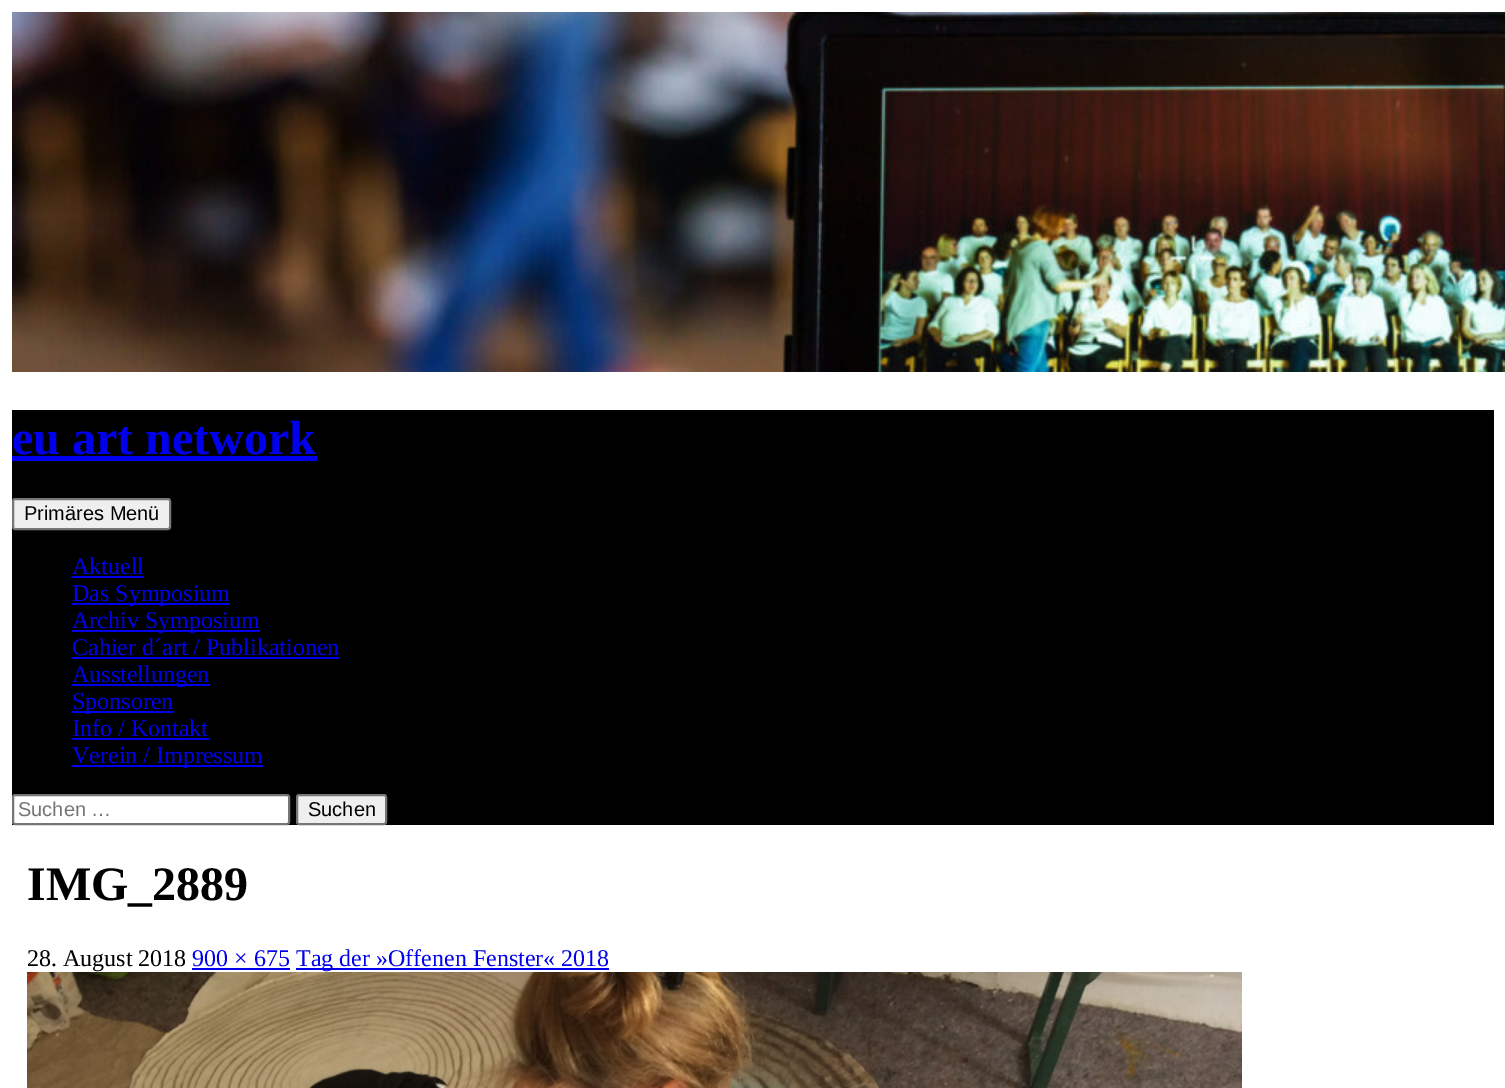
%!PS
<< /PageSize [1505 1088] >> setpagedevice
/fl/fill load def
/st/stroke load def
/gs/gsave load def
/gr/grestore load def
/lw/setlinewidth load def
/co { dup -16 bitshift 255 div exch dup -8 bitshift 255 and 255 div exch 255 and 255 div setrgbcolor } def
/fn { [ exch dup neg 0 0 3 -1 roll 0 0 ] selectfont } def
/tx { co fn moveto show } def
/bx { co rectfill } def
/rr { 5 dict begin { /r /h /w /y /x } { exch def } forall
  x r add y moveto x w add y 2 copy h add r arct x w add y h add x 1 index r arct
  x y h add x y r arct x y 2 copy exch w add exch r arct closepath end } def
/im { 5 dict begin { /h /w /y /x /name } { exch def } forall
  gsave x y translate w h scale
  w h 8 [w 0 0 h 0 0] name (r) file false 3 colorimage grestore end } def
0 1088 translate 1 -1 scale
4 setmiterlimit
0 0 1505 1088 16#FFFFFF bx
(media/1.raw) 12 12 1493 360 im
12 410 1482 415 16#000000 bx
12 456 305 5 16#0000EE bx
16#EFEFEF co
13 499 157 30 2 rr gs fl gr
16#767676 co
2 lw
st
72 576 72 2 16#0000EE bx
72 603 158 2 16#0000EE bx
72 630 188 2 16#0000EE bx
72 657 267 2 16#0000EE bx
72 684 138 2 16#0000EE bx
72 711 102 2 16#0000EE bx
72 738 137 2 16#0000EE bx
72 765 191 2 16#0000EE bx
16#FFFFFF co
13 795 276 29 2 rr gs fl gr
16#767676 co
st
16#EFEFEF co
297 795 89 29 2 rr gs fl gr
16#767676 co
st
192 968 98 2 16#0000EE bx
296 968 313 2 16#0000EE bx
(media/2.raw) 27 972 1215 116 im
(eu art network) 12 454 /LiberationSerif-Bold 48 16#0000EE tx
(Primäres Menü) 24 520 /LiberationSans-Regular 20 16#000000 tx
(Aktuell) 72 574 /LiberationSerif-Regular 24 16#0000EE tx
(Das Symposium) 72 601 /LiberationSerif-Regular 24 16#0000EE tx
(Archiv Symposium) 72 628 /LiberationSerif-Regular 24 16#0000EE tx
(Cahier d´art / Publikationen) 72 655 /LiberationSerif-Regular 24 16#0000EE tx
(Ausstellungen) 72 682 /LiberationSerif-Regular 24 16#0000EE tx
(Sponsoren) 72 709 /LiberationSerif-Regular 24 16#0000EE tx
(Info / Kontakt) 72 736 /LiberationSerif-Regular 24 16#0000EE tx
(Verein / Impressum) 72 763 /LiberationSerif-Regular 24 16#0000EE tx
(Suchen …) 18 816 /LiberationSans-Regular 20 16#757575 tx
(Suchen) 308 816 /LiberationSans-Regular 20 16#000000 tx
(IMG_2889) 27 900 /LiberationSerif-Bold 48 16#000000 tx
(28. August 2018) 27 966 /LiberationSerif-Regular 24 16#000000 tx
(900 × 675) 192 966 /LiberationSerif-Regular 24 16#0000EE tx
(Tag der »Offenen Fenster« 2018) 296 966 /LiberationSerif-Regular 24 16#0000EE tx
showpage
